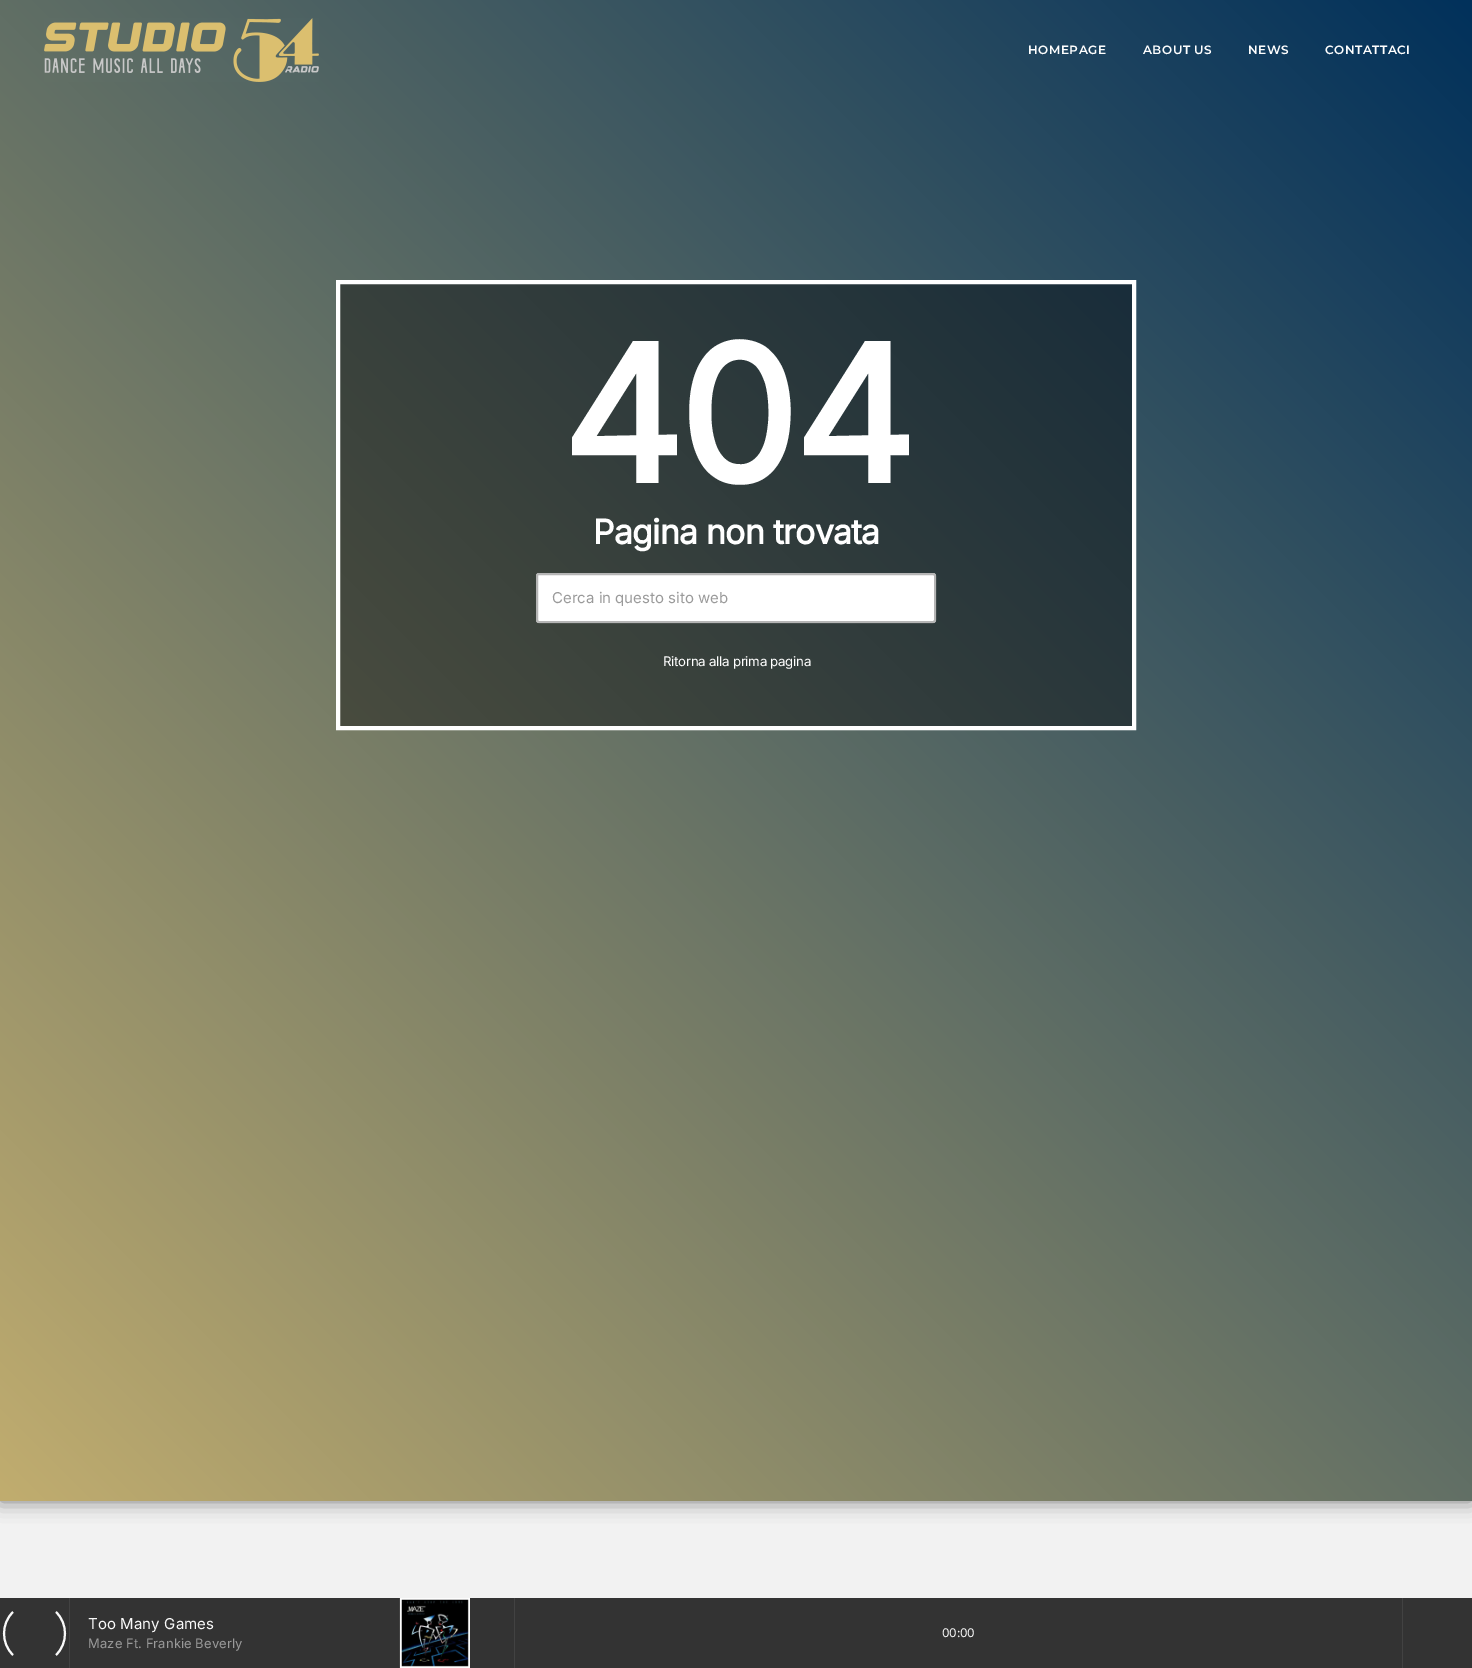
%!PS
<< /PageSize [1472 1668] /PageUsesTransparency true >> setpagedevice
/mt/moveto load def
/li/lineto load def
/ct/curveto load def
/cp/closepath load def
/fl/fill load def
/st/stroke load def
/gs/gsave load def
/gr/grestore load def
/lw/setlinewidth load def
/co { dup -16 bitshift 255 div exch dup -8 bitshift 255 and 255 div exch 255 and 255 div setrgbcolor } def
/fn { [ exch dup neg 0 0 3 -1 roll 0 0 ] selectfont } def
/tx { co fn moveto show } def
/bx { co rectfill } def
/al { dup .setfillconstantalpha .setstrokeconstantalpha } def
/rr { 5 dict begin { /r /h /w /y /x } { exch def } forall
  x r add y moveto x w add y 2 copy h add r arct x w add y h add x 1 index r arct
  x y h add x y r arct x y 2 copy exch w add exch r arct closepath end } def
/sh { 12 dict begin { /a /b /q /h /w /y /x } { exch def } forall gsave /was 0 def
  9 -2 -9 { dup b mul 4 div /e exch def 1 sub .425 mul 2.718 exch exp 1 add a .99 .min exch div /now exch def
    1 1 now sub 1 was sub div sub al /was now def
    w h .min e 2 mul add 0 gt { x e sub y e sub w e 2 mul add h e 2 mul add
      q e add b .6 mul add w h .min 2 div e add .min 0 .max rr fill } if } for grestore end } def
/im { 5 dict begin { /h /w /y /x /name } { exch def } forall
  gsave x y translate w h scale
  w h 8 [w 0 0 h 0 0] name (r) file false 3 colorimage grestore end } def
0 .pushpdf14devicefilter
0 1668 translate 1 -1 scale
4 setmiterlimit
0 0 1472 1668 16#F2F2F2 bx
16#000000 co
0 0 1472 1501 0 10 .5 sh
gs 0 0 mt 1472 0 li 1472 1501 li 0 1501 li cp clip newpath
<< /ShadingType 2 /ColorSpace /DeviceRGB /Coords [-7.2 1494 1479 7.2] /Extend [true true] /Function << /FunctionType 2 /Domain [0 1] /C0 [.757 .678 .435] /C1 [.004 .192 .357] /N 1 >> >> shfill gr
(media/1.raw) 44 18 275 64 im
gs 340 284 mt 1132 284 li 1132 726 li 340 726 li cp clip newpath
<< /ShadingType 2 /ColorSpace /DeviceRGB /Coords [-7.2 1494 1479 7.2] /Extend [true true] /Function << /FunctionType 2 /Domain [0 1] /C0 [.455 .408 .263] /C1 [.004 .114 .216] /N 1 >> >> shfill gr
16#FFFFFF co
4 lw
338 282 796 446 rectstroke
536 573 400 50 3 rr fl
0.7 al
16#969696 co
2 lw
537 574 398 48 2 rr st
1 al
0 1598 1472 70 16#333333 bx
399 1598 1 70 16#424242 bx
69 1598 1 70 16#424242 bx
16#F9F9F9 co
56 1612 mt 68 1623.5 68 1643.5 56 1655 ct 13 1655 mt 1 1643.5 1 1623.5 13 1612 ct st
(media/2.raw) 400 1598 70 70 im
514 1598 1 70 16#424242 bx
1402 1598 1 70 16#424242 bx
/Montserrat-Thin 12 fn
16#FFFFFF co
1028 54 mt .5 0 (HOMEPAGE) ashow
1143 54 mt .5 0 (ABOUT US) ashow
1248 54 mt .5 0 (NEWS) ashow
1325 54 mt .5 0 (CONTATTACI) ashow
/Inter-Bold 188 fn
561 483 mt -4 0 (404) ashow
/Inter-Bold 33.75 fn
593 544 mt -.7 0 (Pagina non trovata) ashow
(Cerca in questo sito web) 552 603 /Inter-Regular 15 16#9A9A9A tx
/Inter-Regular 13.25 fn
16#FFFFFF co
663 666 mt -.25 0 (Ritorna alla prima pagina) ashow
/Inter-Regular 15 fn
16#F9F9F9 co
88 1629 mt .1 0 (Too Many Games) ashow
/Inter-Regular 13 fn
16#9A9A9A co
88 1648 mt .1 0 (Maze Ft. Frankie Beverly) ashow
/Inter-Regular 12 fn
16#F9F9F9 co
942 1637 mt -.25 0 (00:00) ashow
.poppdf14devicefilter showpage
